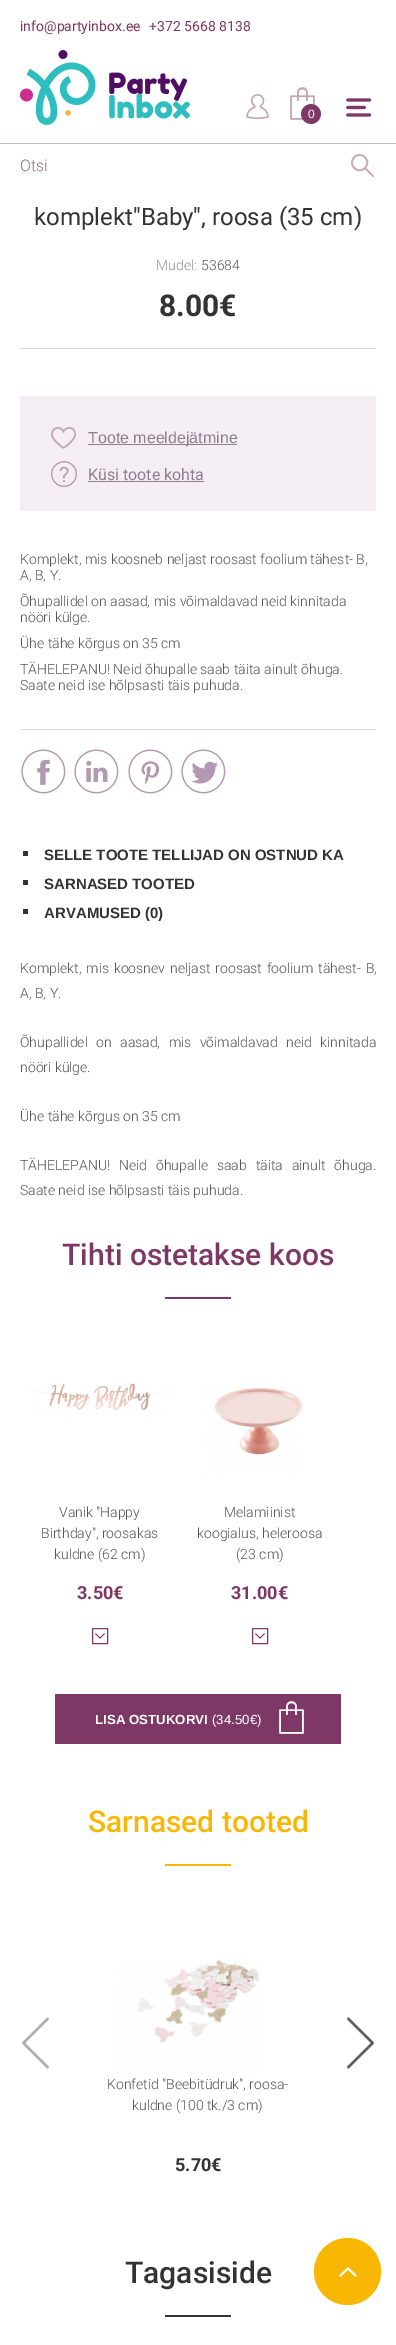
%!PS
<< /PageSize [396 2345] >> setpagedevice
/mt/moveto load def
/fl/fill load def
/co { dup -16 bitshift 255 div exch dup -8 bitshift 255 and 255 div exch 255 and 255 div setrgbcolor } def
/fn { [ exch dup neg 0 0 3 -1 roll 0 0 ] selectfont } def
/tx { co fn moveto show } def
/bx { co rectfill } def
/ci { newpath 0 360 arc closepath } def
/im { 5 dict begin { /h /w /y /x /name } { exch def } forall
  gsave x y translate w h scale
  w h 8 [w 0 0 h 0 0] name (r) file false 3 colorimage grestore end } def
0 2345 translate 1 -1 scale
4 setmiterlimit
0 0 396 2345 16#FFFFFF bx
(media/1.raw) 20 50 170 75 im
(media/2.raw) 346 98 26 19 im
(media/3.raw) 246 94 23 25 im
(media/4.raw) 290 87 31 37 im
0 143 396 1 16#CFB9C1 bx
(media/5.raw) 351 154 23 23 im
20 348 356 1 16#DCDCDC bx
20 396 356 115 16#F4EEF4 bx
(media/6.raw) 51 427 25 22 im
88 444 149 1 16#917D90 bx
(media/7.raw) 51 461 26 26 im
88 481 116 1 16#917D90 bx
20 729 356 1 16#DCDCDC bx
(media/8.raw) 21 749 45 45 im
(media/9.raw) 74 749 45 45 im
(media/10.raw) 128 749 45 45 im
(media/11.raw) 181 749 45 45 im
23 851 5 5 16#333333 bx
23 880 5 5 16#333333 bx
23 909 5 5 16#333333 bx
165 1297 66 2 16#7D3865 bx
(media/12.raw) 30 1383 141 28 im
(media/13.raw) 95 1633 10 6 im
92.5 1628.5 15 15 rectstroke
(media/14.raw) 202 1387 101 91 im
(media/13.raw) 255 1633 10 6 im
252.5 1628.5 15 15 rectstroke
55 1694 286 50 16#7D3865 bx
(media/15.raw) 279 1701 25 33 im
165 1864 66 2 16#F8B703 bx
(media/16.raw) 22 2017 27 52 im
(media/17.raw) 347 2017 27 52 im
(media/18.raw) 118 1959 142 115 im
165 2315 66 2 16#333333 bx
16#F8B703 co
347.5 2271.5 33.5 ci fl
(media/19.raw) 339 2267 18 10 im
(info@partyinbox.ee) 20 31 /Roboto-Regular 14 16#7D3865 tx
(+372 5668 8138) 149 31 /Roboto-Regular 14 16#7D3865 tx
(0) 308 118 /LiberationSans-Regular 12 16#FFFFFF tx
(Otsi) 20 171 /Roboto-Light 16 16#8D6E82 tx
(komplekt"Baby", roosa \(35 cm\)) 34 225 /Roboto-Regular 24 16#333333 tx
(Mudel:) 156 270 /Roboto-Light 14 16#919191 tx
(53684) 201 270 /Roboto-Light 14 16#555555 tx
(8.00€) 159 316 /Roboto-Bold 30 16#333333 tx
(Toote meeldejätmine) 88 443 /LiberationSans-Regular 16 16#917D90 tx
(Küsi toote kohta) 88 480 /Roboto-Regular 16 16#917D90 tx
(Komplekt, mis koosneb neljast roosast foolium tähest- B,) 20 564 /Roboto-Light 14 16#555555 tx
(A, B, Y.) 20 580 /Roboto-Light 14 16#555555 tx
(Õhupallidel on aasad, mis võimaldavad neid kinnitada) 20 606 /Roboto-Light 14 16#555555 tx
(nööri külge.) 20 622 /Roboto-Light 14 16#555555 tx
(Ühe tähe kõrgus on 35 cm) 20 648 /Roboto-Light 14 16#555555 tx
(TÄHELEPANU! Neid õhupalle saab täita ainult õhuga.) 20 674 /Roboto-Light 14 16#555555 tx
(Saate neid ise hõlpsasti täis puhuda.) 20 690 /Roboto-Light 14 16#555555 tx
(SELLE TOOTE TELLIJAD ON OSTNUD KA) 44 860 /LiberationSans-Bold 15 16#333333 tx
(SARNASED TOOTED) 44 889 /LiberationSans-Bold 15 16#333333 tx
(ARVAMUSED \(0\)) 44 918 /LiberationSans-Bold 15 16#333333 tx
/Roboto-Light 14 fn
16#555555 co
20 973 mt 1.5 0 32 (Komplekt, mis koosnev neljast roosast foolium tähest- B,) widthshow
(A, B, Y.) 20 998 /Roboto-Light 14 16#555555 tx
20 1047 mt 5 0 32 (Õhupallidel on aasad, mis võimaldavad neid kinnitada) widthshow
(nööri külge.) 20 1072 /Roboto-Light 14 16#555555 tx
(Ühe tähe kõrgus on 35 cm) 20 1121 /Roboto-Light 14 16#555555 tx
20 1170 mt 5.5 0 32 (TÄHELEPANU! Neid õhupalle saab täita ainult õhuga.) widthshow
(Saate neid ise hõlpsasti täis puhuda.) 20 1195 /Roboto-Light 14 16#555555 tx
(Tihti ostetakse koos) 62 1265 /Roboto-Medium 30 16#7D3865 tx
(Vanik "Happy) 59 1517 /Roboto-Light 14 16#555555 tx
(Birthday", roosakas) 41 1538 /Roboto-Light 14 16#555555 tx
(kuldne \(62 cm\)) 54 1559 /Roboto-Light 14 16#555555 tx
(3.50€) 77 1599 /Roboto-Bold 18 16#7D3865 tx
(Melamiinist) 224 1517 /Roboto-Light 14 16#555555 tx
(koogialus, heleroosa) 197 1538 /Roboto-Light 14 16#555555 tx
(\(23 cm\)) 236 1559 /Roboto-Light 14 16#555555 tx
(31.00€) 231 1599 /Roboto-Bold 18 16#7D3865 tx
(LISA OSTUKORVI) 95 1724 /LiberationSans-Bold 13.25 16#FFFFFF tx
(\(34.50€\)) 212 1724 /LiberationSans-Regular 13.25 16#FFFFFF tx
(Sarnased tooted) 88 1832 /Roboto-Medium 30 16#F8B703 tx
(Konfetid "Beebitüdruk", roosa-) 107 2089 /Roboto-Light 14 16#555555 tx
(kuldne \(100 tk./3 cm\)) 132 2110 /Roboto-Light 14 16#555555 tx
(5.70€) 175 2171 /Roboto-Bold 18 16#333333 tx
(Tagasiside) 125 2283 /Roboto-Medium 30 16#333333 tx
showpage
